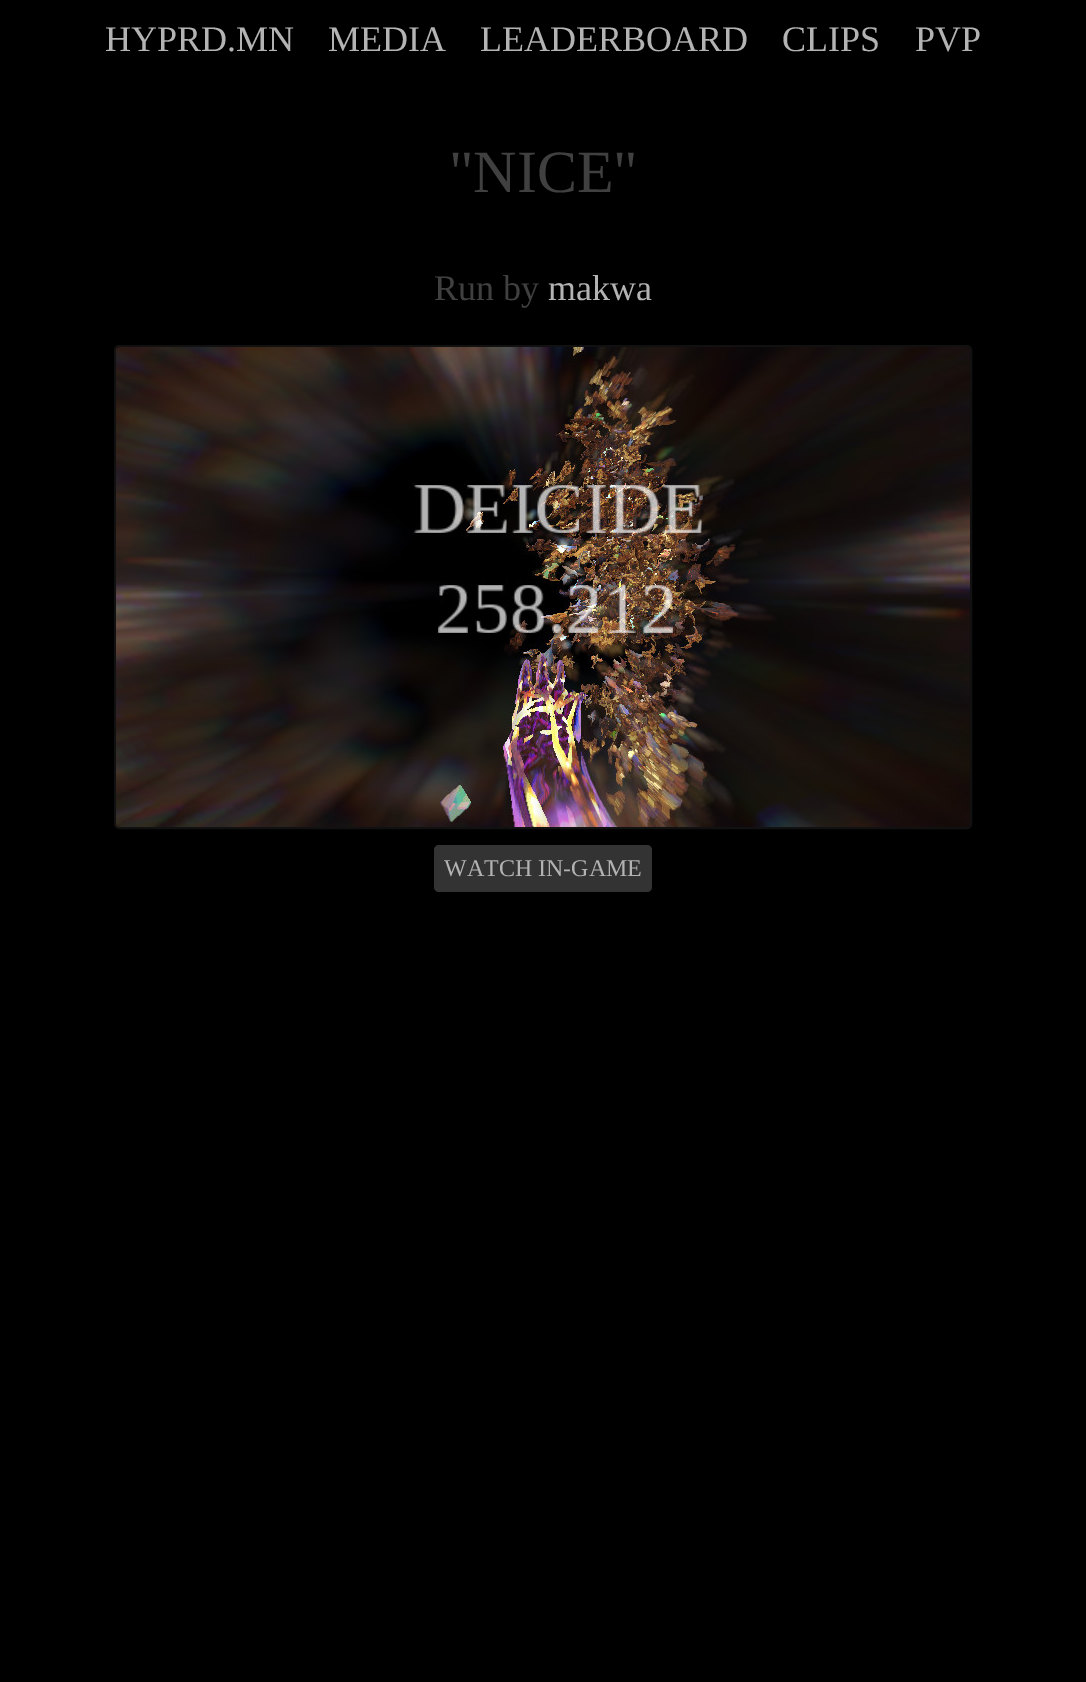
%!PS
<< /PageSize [1086 1682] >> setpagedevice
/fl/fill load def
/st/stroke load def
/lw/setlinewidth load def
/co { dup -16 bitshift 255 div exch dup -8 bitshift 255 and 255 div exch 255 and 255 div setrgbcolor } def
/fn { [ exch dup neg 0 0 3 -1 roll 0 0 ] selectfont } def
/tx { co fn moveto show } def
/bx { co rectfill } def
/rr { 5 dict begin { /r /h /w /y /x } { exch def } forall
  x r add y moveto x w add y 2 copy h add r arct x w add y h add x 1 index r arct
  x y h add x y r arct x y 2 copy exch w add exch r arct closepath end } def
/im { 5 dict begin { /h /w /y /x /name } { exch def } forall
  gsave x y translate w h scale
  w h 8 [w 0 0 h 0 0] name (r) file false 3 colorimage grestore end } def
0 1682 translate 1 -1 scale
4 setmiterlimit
0 0 1086 1682 16#000000 bx
16#111111 co
2 lw
115 346 856 482 4 rr st
(media/1.raw) 116 347 854 480 im
16#333333 co
434 845 218 47 5 rr fl
(HYPRD.MN) 105 51 /Tinos-Regular 36 16#B3B3B3 tx
(MEDIA) 328 51 /Tinos-Regular 36 16#B3B3B3 tx
(LEADERBOARD) 480 51 /Tinos-Regular 36 16#B3B3B3 tx
(CLIPS) 782 51 /Tinos-Regular 36 16#B3B3B3 tx
(PVP) 915 51 /Tinos-Regular 36 16#B3B3B3 tx
("NICE") 449 192 /Tinos-Regular 60 16#404040 tx
(Run by) 434 300 /Tinos-Regular 36 16#404040 tx
(makwa) 548 300 /Tinos-Regular 36 16#B3B3B3 tx
(WATCH IN-GAME) 444 876 /Tinos-Regular 24 16#B3B3B3 tx
showpage
